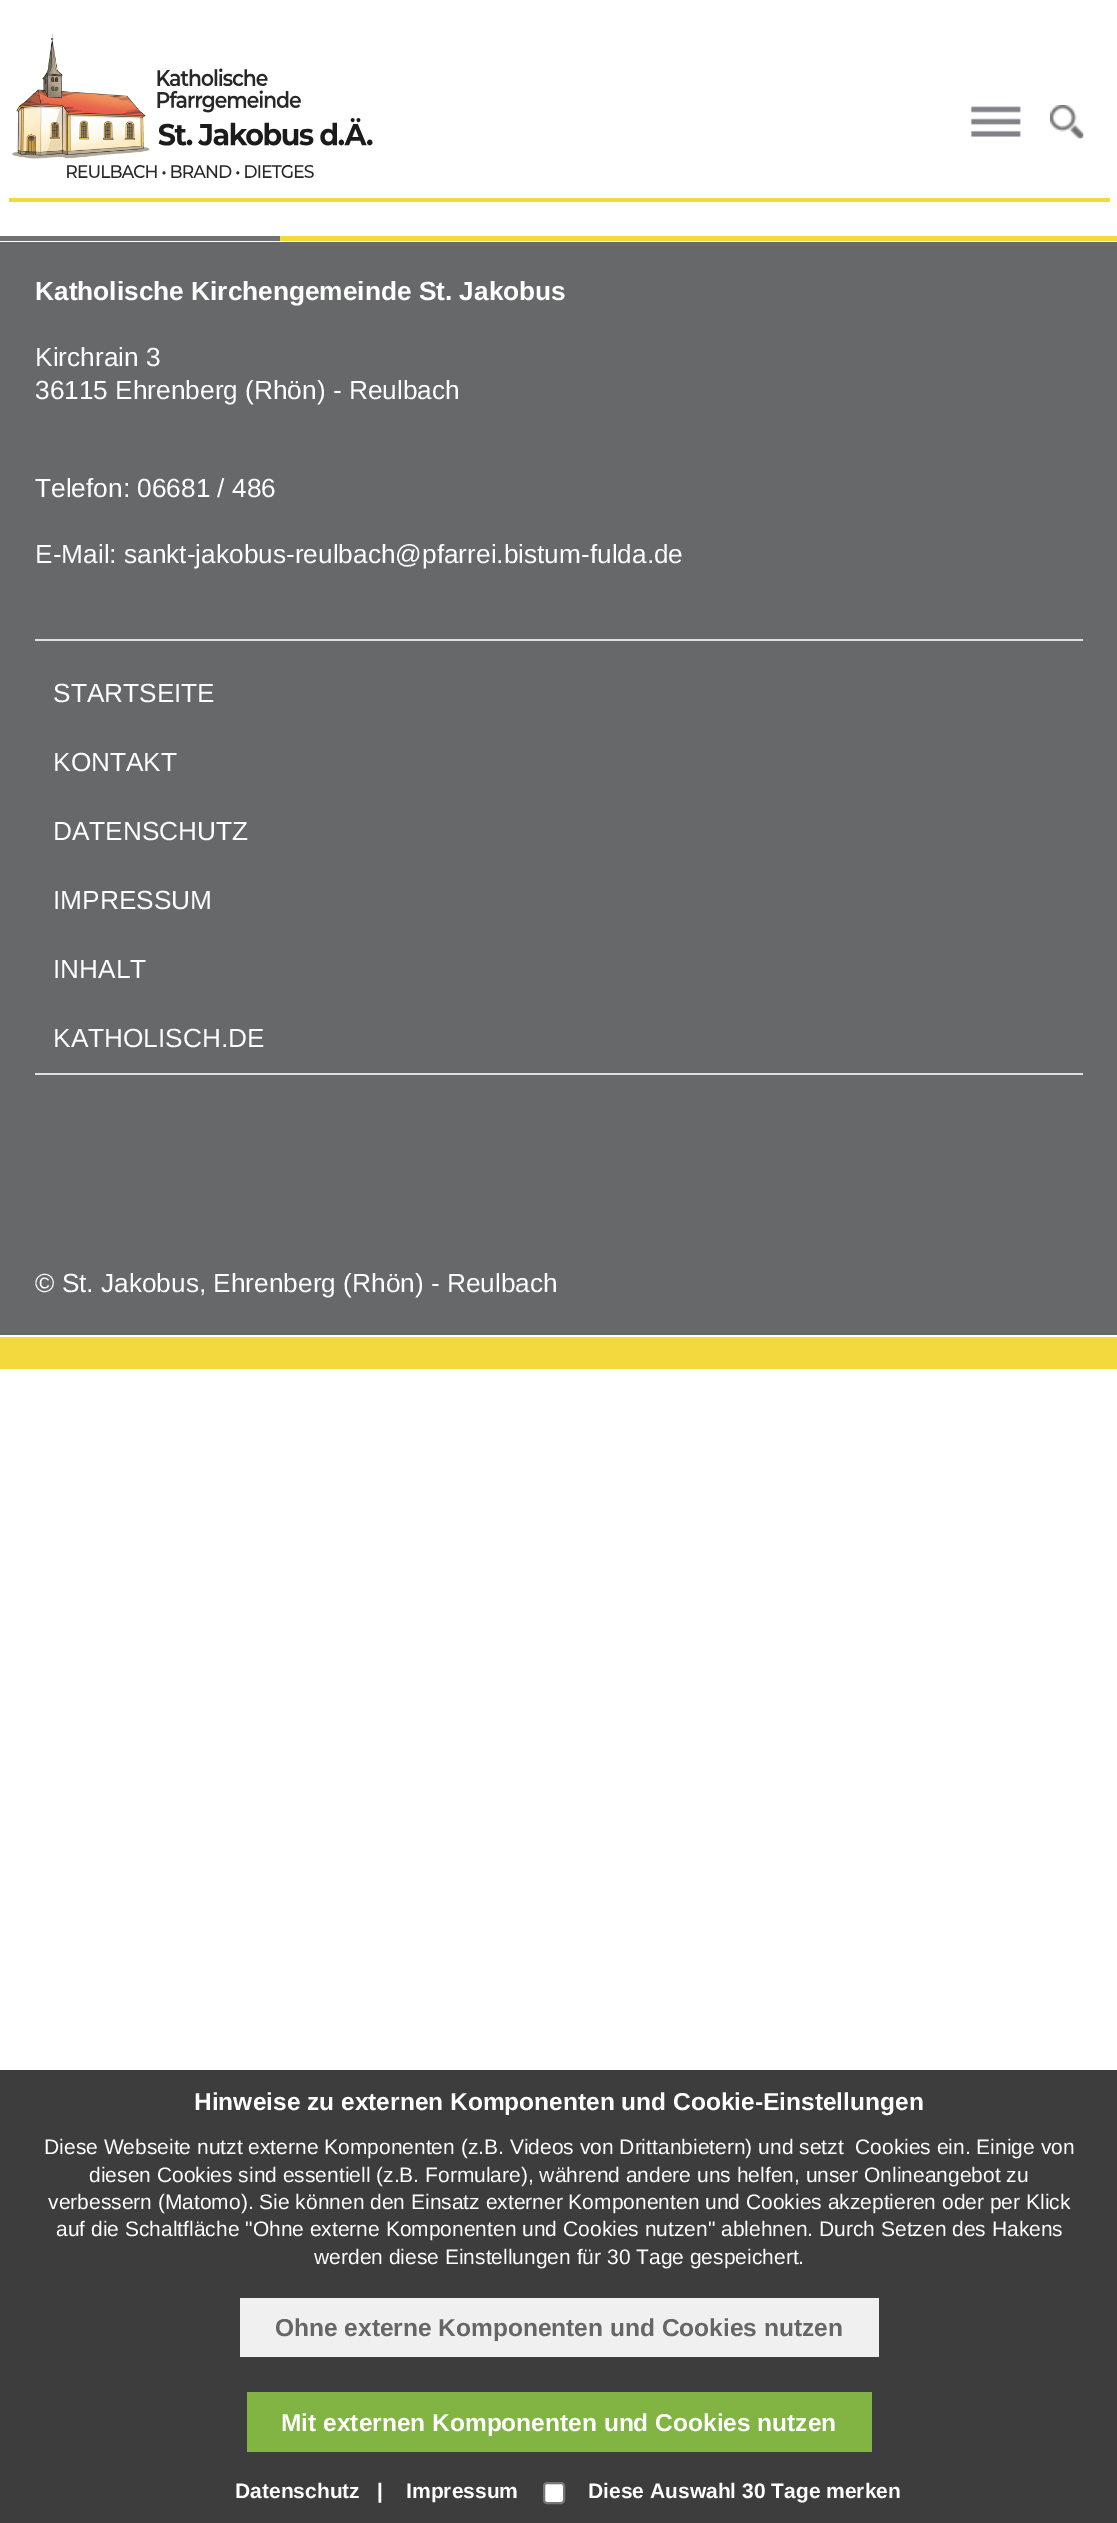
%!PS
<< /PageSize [1117 2523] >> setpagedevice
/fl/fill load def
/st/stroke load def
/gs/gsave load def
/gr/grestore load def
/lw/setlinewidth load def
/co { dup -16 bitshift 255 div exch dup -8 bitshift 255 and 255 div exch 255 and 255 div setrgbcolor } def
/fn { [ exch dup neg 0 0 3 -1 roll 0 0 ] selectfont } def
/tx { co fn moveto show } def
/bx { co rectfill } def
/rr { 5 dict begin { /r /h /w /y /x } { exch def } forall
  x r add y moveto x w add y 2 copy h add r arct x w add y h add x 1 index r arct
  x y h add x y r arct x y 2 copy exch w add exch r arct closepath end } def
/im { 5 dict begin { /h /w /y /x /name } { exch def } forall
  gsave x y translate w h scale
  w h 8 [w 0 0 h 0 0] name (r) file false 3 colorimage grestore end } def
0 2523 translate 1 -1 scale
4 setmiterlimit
0 0 1117 2523 16#FFFFFF bx
9 198 1101 4 16#F3D93C bx
(media/1.raw) 12 33 361 145 im
(media/2.raw) 970 106 51 31 im
(media/3.raw) 1050 105 34 34 im
0 1337 1117 32 16#F3D93B bx
0 236 280 5 16#707173 bx
280 236 837 5 16#F3D93C bx
0 242 1117 1093 16#67686A bx
35 639 1048 2 16#E0E0E0 bx
35 1073 1048 2 16#E0E0E0 bx
0 2070 1117 453 16#3D3D3D bx
240 2298 639 59 16#F0F0F0 bx
247 2392 625 60 16#82B443 bx
16#FFFFFF co
544 2483 20 20 3 rr gs fl gr
16#767676 co
2 lw
st
(Katholische Kirchengemeinde St. Jakobus) 35 300 /LiberationSans-Bold 26.25 16#FFFFFF tx
(Kirchrain 3) 35 366 /LiberationSans-Regular 26.25 16#FFFFFF tx
(36115 Ehrenberg \(Rhön\) - Reulbach) 35 399 /LiberationSans-Regular 26.25 16#FFFFFF tx
(Telefon: 06681 / 486) 35 497 /LiberationSans-Regular 26.25 16#FFFFFF tx
(E-Mail: sankt-jakobus-reulbach@pfarrei.bistum-fulda.de) 35 563 /LiberationSans-Regular 26.25 16#FFFFFF tx
(STARTSEITE) 53 702 /LiberationSans-Regular 26.25 16#FFFFFF tx
(KONTAKT) 53 771 /LiberationSans-Regular 26.25 16#FFFFFF tx
(DATENSCHUTZ) 53 840 /LiberationSans-Regular 26.25 16#FFFFFF tx
(IMPRESSUM) 53 909 /LiberationSans-Regular 26.25 16#FFFFFF tx
(INHALT) 53 978 /LiberationSans-Regular 26.25 16#FFFFFF tx
(KATHOLISCH.DE) 53 1047 /LiberationSans-Regular 26.25 16#FFFFFF tx
(© St. Jakobus, Ehrenberg \(Rhön\) - Reulbach) 35 1292 /LiberationSans-Regular 26.25 16#FFFFFF tx
(Hinweise zu externen Komponenten und Cookie-Einstellungen) 194 2110 /LiberationSans-Bold 24.5 16#FFFFFF tx
(Diese Webseite nutzt externe Komponenten \(z.B. Videos von Drittanbietern\) und setzt  Cookies ein. Einige von) 44 2154 /LiberationSans-Regular 21 16#FFFFFF tx
(diesen Cookies sind essentiell \(z.B. Formulare\), während andere uns helfen, unser Onlineangebot zu) 89 2182 /LiberationSans-Regular 21 16#FFFFFF tx
(verbessern \(Matomo\). Sie können den Einsatz externer Komponenten und Cookies akzeptieren oder per Klick) 48 2209 /LiberationSans-Regular 21 16#FFFFFF tx
(auf die Schaltfläche "Ohne externe Komponenten und Cookies nutzen" ablehnen. Durch Setzen des Hakens) 56 2236 /LiberationSans-Regular 21 16#FFFFFF tx
(werden diese Einstellungen für 30 Tage gespeichert.) 314 2264 /LiberationSans-Regular 21 16#FFFFFF tx
(Ohne externe Komponenten und Cookies nutzen) 275 2336 /LiberationSans-Bold 24.5 16#666666 tx
(Mit externen Komponenten und Cookies nutzen) 281 2431 /LiberationSans-Bold 24.5 16#FFFFFF tx
(Datenschutz) 235 2498 /LiberationSans-Bold 21 16#FFFFFF tx
(|) 377 2498 /LiberationSans-Bold 21 16#FFFFFF tx
(Impressum) 406 2498 /LiberationSans-Bold 21 16#FFFFFF tx
(Diese Auswahl 30 Tage merken) 588 2498 /LiberationSans-Bold 21 16#FFFFFF tx
showpage
